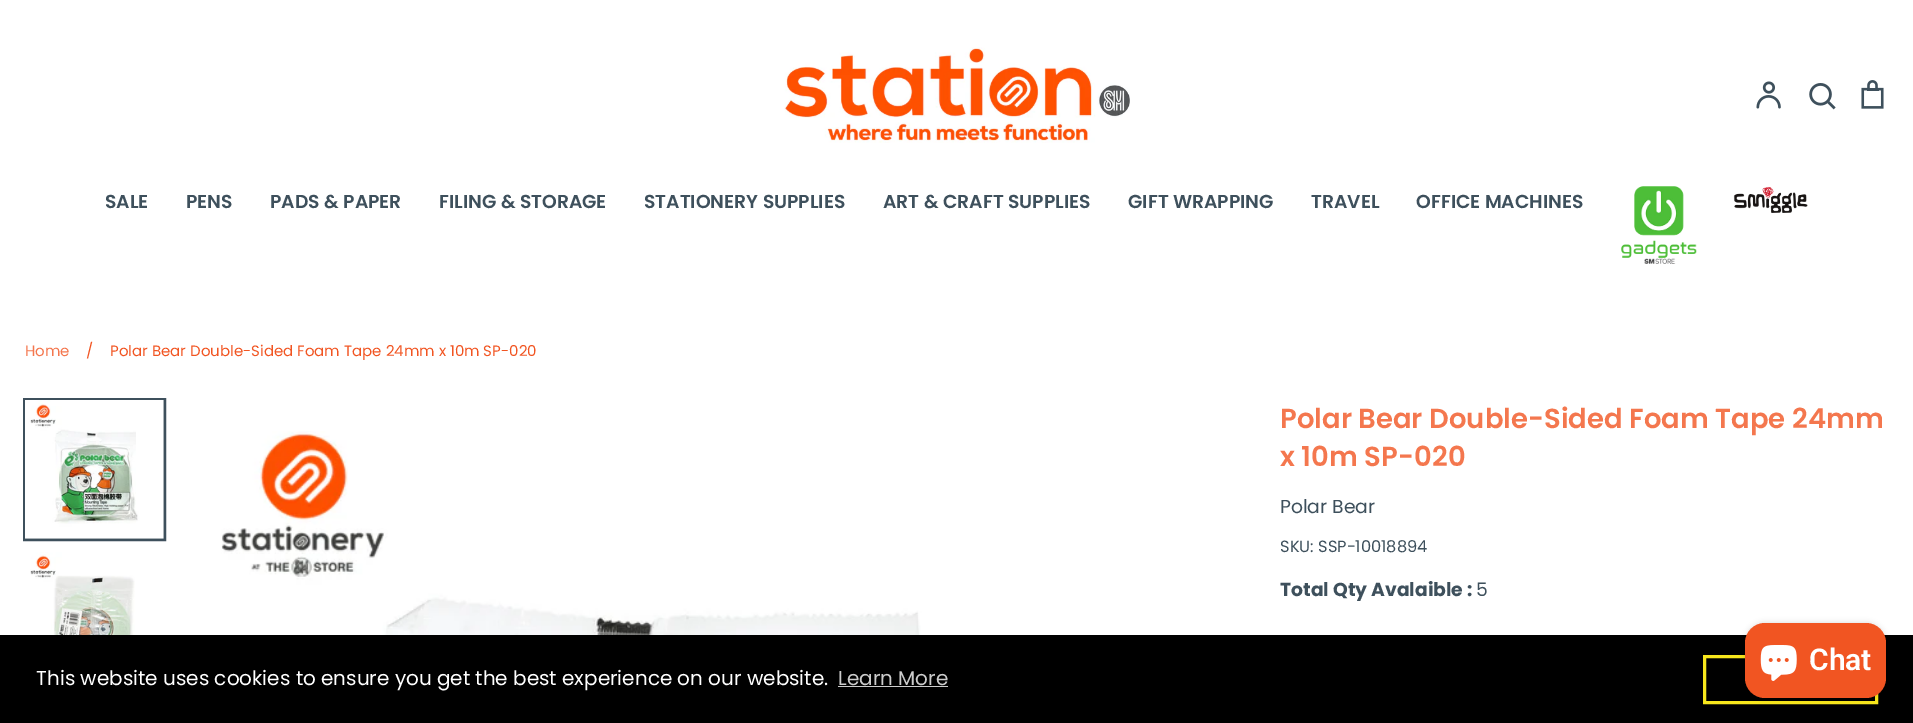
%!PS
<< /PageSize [1913 723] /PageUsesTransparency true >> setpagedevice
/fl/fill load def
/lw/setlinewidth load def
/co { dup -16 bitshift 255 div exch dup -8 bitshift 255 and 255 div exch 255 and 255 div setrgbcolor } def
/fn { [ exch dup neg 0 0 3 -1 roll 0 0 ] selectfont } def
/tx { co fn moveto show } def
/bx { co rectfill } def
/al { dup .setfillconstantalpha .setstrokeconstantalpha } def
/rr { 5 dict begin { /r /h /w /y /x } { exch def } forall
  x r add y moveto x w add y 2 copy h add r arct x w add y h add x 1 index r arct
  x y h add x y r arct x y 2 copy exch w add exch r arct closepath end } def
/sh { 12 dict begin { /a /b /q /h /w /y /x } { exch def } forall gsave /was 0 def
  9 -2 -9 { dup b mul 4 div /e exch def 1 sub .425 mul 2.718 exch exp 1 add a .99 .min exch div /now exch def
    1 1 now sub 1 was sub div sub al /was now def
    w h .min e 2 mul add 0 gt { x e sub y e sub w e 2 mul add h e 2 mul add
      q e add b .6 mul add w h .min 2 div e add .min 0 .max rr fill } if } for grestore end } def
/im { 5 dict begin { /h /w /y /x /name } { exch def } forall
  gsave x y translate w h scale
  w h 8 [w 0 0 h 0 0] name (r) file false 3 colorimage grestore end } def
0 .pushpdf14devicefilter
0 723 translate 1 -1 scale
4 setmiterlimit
0 0 1913 723 16#FFFFFF bx
(media/1.raw) 784 47 346 96 im
(media/2.raw) 1756 81 25 28 im
(media/3.raw) 1809 83 27 27 im
(media/4.raw) 1861 80 23 29 im
(media/5.raw) 1621 186 76 78 im
(media/6.raw) 1733 186 75 27 im
16#3E505C co
3 lw
24.5 399.5 140 140 rectstroke
(media/7.raw) 25 400 139 139 im
(media/8.raw) 30 552 105 83 im
(media/9.raw) 221 431 701 204 im
0 635 1913 88 16#000000 bx
16#F8E71C co
1704.5 656.5 172 46 rectstroke
16#000000 co
1745 623 141 75 20 3 .15 sh
16#F15522 co
1745 623 141 75 20 rr fl
(media/10.raw) 1760 645 37 36 im
838 686 110 1 16#CCCCCC bx
(SALE) 105 208 /Poppins-SemiBold 18.75 16#3E505C tx
(PENS) 186 208 /Poppins-SemiBold 18.75 16#3E505C tx
(PADS & PAPER) 270 208 /Poppins-SemiBold 18.75 16#3E505C tx
(FILING & STORAGE) 439 208 /Poppins-SemiBold 18.75 16#3E505C tx
(STATIONERY SUPPLIES) 644 208 /Poppins-SemiBold 18.75 16#3E505C tx
(ART & CRAFT SUPPLIES) 883 208 /Poppins-SemiBold 18.75 16#3E505C tx
(GIFT WRAPPING) 1128 208 /Poppins-SemiBold 18.75 16#3E505C tx
(TRAVEL) 1311 208 /Poppins-SemiBold 18.75 16#3E505C tx
(OFFICE MACHINES) 1416 208 /Poppins-SemiBold 18.75 16#3E505C tx
(Home) 25 356 /Poppins-Regular 15 16#F4774E tx
(/) 86 356 /Poppins-Regular 15 16#F15522 tx
(Polar Bear Double-Sided Foam Tape 24mm x 10m SP-020) 110 356 /Poppins-Regular 15 16#F15522 tx
(Polar Bear Double-Sided Foam Tape 24mm) 1280 428 /Poppins-SemiBold 27.5 16#F4774E tx
(x 10m SP-020) 1280 466 /Poppins-SemiBold 27.5 16#F4774E tx
(Polar Bear) 1280 513 /Poppins-Regular 18.75 16#3E505C tx
(SKU: SSP-10018894) 1280 552 /Poppins-Regular 16.25 16#3E505C tx
(Total Qty Avalaible :) 1280 596 /Poppins-Bold 18.75 16#3E505C tx
(5) 1476 596 /Poppins-Regular 18.75 16#3E505C tx
(Chat) 1809 670 /Roboto-SemiBold 30 16#FFFFFF tx
(This website uses cookies to ensure you get the best experience on our website.) 36 685 /Poppins-Regular 20 16#FFFFFF tx
(Learn More) 838 685 /Poppins-Regular 20 16#CCCCCC tx
.poppdf14devicefilter showpage
